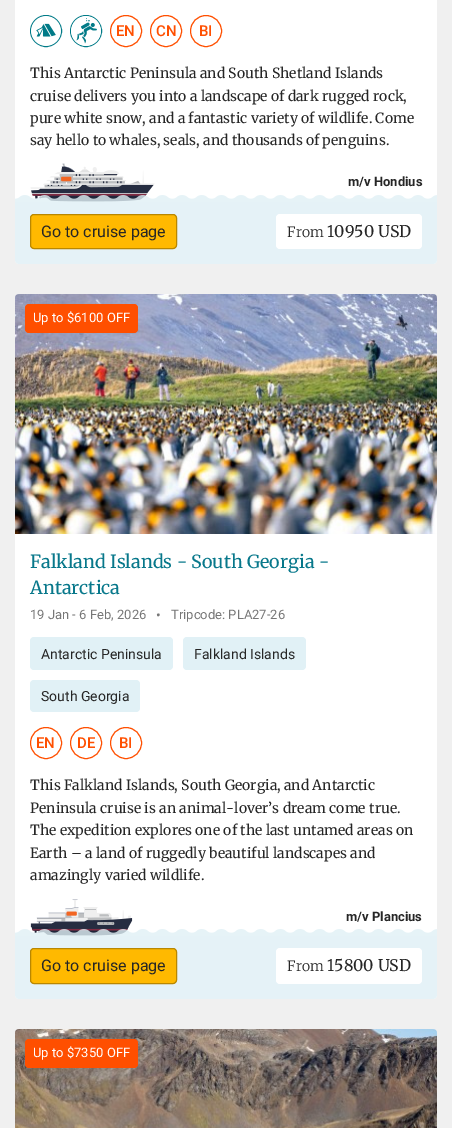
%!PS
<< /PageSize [452 1128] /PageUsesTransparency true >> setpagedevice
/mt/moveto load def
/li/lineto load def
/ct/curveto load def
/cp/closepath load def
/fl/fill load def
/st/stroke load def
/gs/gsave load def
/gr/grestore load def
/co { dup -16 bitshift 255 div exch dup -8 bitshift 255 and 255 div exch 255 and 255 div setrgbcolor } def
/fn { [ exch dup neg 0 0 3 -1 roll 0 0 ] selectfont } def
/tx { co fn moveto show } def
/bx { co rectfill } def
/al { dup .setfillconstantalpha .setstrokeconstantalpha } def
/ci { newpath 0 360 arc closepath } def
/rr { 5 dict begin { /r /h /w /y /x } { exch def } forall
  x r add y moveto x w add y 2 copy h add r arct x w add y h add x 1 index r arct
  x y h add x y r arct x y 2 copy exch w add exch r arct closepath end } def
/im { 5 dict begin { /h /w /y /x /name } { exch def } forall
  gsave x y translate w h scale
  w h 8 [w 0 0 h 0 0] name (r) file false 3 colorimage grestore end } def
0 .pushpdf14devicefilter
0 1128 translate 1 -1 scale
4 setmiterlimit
0 0 452 1128 16#F0F0F0 bx
16#FFFFFF co
15 -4 mt 437 -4 li 437 260 li 437 262 435 264 433 264 ct 19 264 li 17 264 15 262 15 260 ct cp fl
16#007A87 co
46 31 15.5 ci st
(media/1.raw) 31 16 30 30 im
86 31 15.5 ci st
(media/2.raw) 71 16 30 30 im
16#FF4F00 co
126 31 15.5 ci st
166 31 15.5 ci st
206 31 15.5 ci st
0.7 al
16#DAEDF4 co
15 202 mt 437 202 li 437 260 li 437 262 435 264 433 264 ct 19 264 li 17 264 15 262 15 260 ct cp fl
1 al
(media/3.raw) 30 163 125 39 im
(media/4.raw) 15 195 422 7 im
16#FFB900 co
30.5 214.5 146 34 3.5 rr gs fl gr
16#B98700 co
st
16#FFFFFF co
276 214 146 35 4 rr fl
(media/5.raw) 15 294 422 240 im
16#FF4F00 co
25 304 113 29 4 rr fl
16#FFFFFF co
15 534 mt 437 534 li 437 995 li 437 997 435 999 433 999 ct 19 999 li 17 999 15 997 15 995 ct cp fl
16#E1F1F6 co
30 637 143 33 4 rr fl
183 637 123 33 4 rr fl
30 680 110 32 4 rr fl
16#FF4F00 co
46 743 15.5 ci st
86 743 15.5 ci st
126 743 15.5 ci st
0.7 al
16#DAEDF4 co
15 936 mt 437 936 li 437 995 li 437 997 435 999 433 999 ct 19 999 li 17 999 15 997 15 995 ct cp fl
1 al
(media/6.raw) 30 899 103 37 im
(media/7.raw) 15 929 422 7 im
16#FFB900 co
30.5 948.5 146 35 3.5 rr gs fl gr
16#B98700 co
st
16#FFFFFF co
276 948 146 36 4 rr fl
(media/8.raw) 15 1029 422 99 im
16#FF4F00 co
25 1039 113 29 4 rr fl
(EN) 116 36 /Roboto-Medium 15 16#FF4F00 tx
(CN) 156 36 /Roboto-Medium 15 16#FF4F00 tx
(BI) 199 36 /Roboto-Medium 15 16#FF4F00 tx
(This Antarctic Peninsula and South Shetland Islands) 30 78 /Merriweather-Regular 14 16#262626 tx
(cruise delivers you into a landscape of dark rugged rock,) 30 101 /Merriweather-Regular 14 16#262626 tx
(pure white snow, and a fantastic variety of wildlife. Come) 30 123 /Merriweather-Regular 14 16#262626 tx
(say hello to whales, seals, and thousands of penguins.) 30 145 /Merriweather-Regular 14 16#262626 tx
(m/v Hondius) 348 186 /Roboto-Bold 13 16#262626 tx
(Go to cruise page) 41 237 /Roboto-Regular 16 16#262626 tx
(From) 287 237 /Merriweather-Light 14 16#262626 tx
(10950 USD) 327 237 /Merriweather-Regular 16 16#262626 tx
(Up to $6100 OFF) 33 322 /Roboto-Regular 13 16#FFFFFF tx
(Falkland Islands - South Georgia -) 30 568 /Merriweather-Regular 18 16#08788B tx
(Antarctica) 30 594 /Merriweather-Regular 18 16#08788B tx
(19 Jan - 6 Feb, 2026) 30 619 /Roboto-Regular 13 16#777777 tx
(•) 156 620 /Roboto-Regular 14 16#777777 tx
(Tripcode: PLA27-26) 171 619 /Roboto-Regular 13 16#777777 tx
(Antarctic Peninsula) 41 659 /Roboto-Regular 14 16#262626 tx
(Falkland Islands) 194 659 /Roboto-Regular 14 16#262626 tx
(South Georgia) 41 701 /Roboto-Regular 14 16#262626 tx
(EN) 36 748 /Roboto-Medium 15 16#FF4F00 tx
(DE) 77 748 /Roboto-Medium 15 16#FF4F00 tx
(BI) 119 748 /Roboto-Medium 15 16#FF4F00 tx
(This Falkland Islands, South Georgia, and Antarctic) 30 790 /Merriweather-Regular 14 16#262626 tx
(Peninsula cruise is an animal-lover’s dream come true.) 30 813 /Merriweather-Regular 14 16#262626 tx
(The expedition explores one of the last untamed areas on) 30 835 /Merriweather-Regular 14 16#262626 tx
(Earth – a land of ruggedly beautiful landscapes and) 30 858 /Merriweather-Regular 14 16#262626 tx
(amazingly varied wildlife.) 30 880 /Merriweather-Regular 14 16#262626 tx
(m/v Plancius) 346 921 /Roboto-Bold 13 16#262626 tx
(Go to cruise page) 41 971 /Roboto-Regular 16 16#262626 tx
(From) 287 971 /Merriweather-Light 14 16#262626 tx
(15800 USD) 327 971 /Merriweather-Regular 16 16#262626 tx
(Up to $7350 OFF) 33 1057 /Roboto-Regular 13 16#FFFFFF tx
.poppdf14devicefilter showpage
